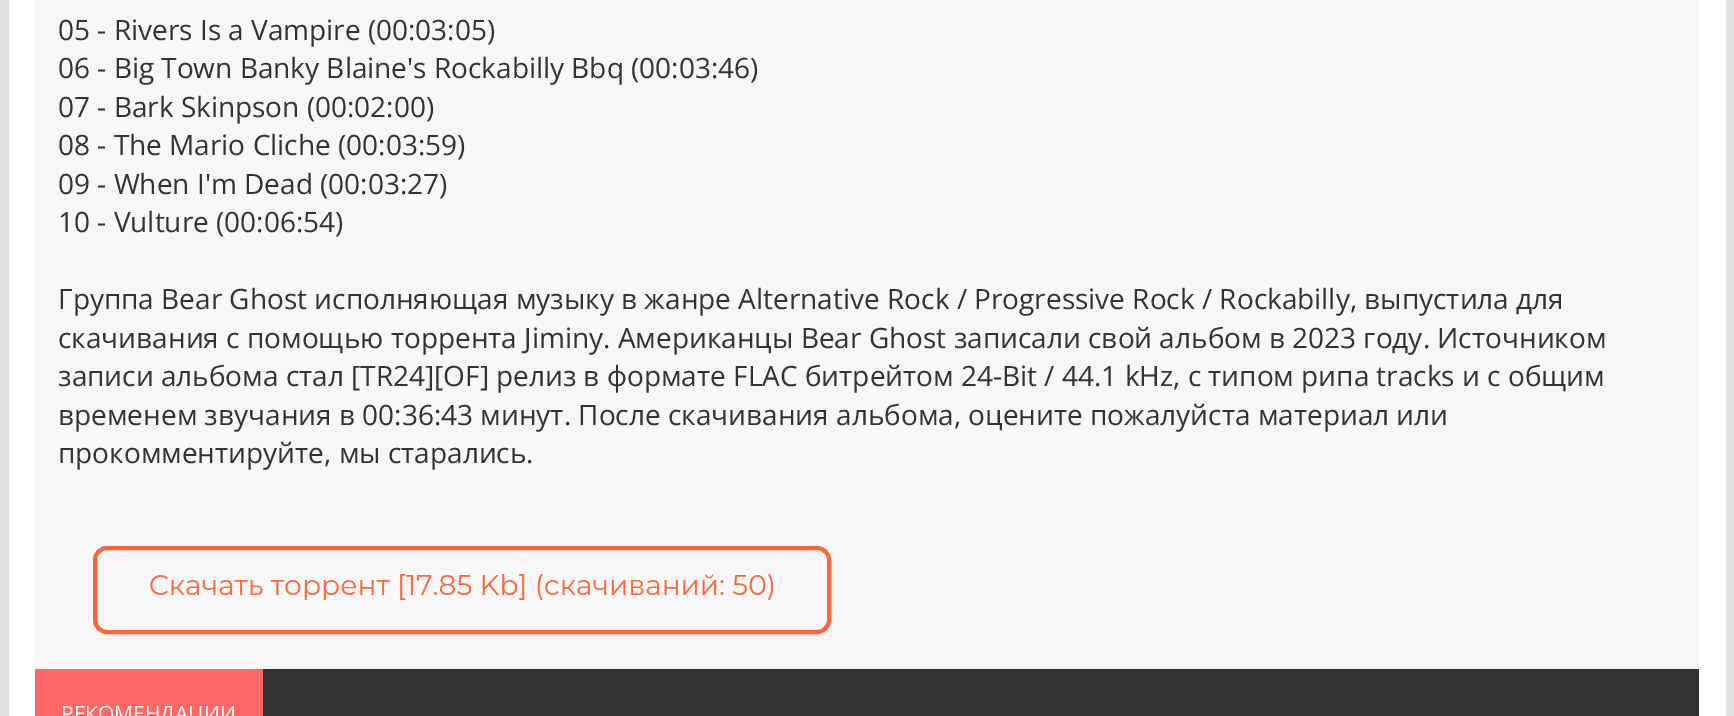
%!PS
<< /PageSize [1734 716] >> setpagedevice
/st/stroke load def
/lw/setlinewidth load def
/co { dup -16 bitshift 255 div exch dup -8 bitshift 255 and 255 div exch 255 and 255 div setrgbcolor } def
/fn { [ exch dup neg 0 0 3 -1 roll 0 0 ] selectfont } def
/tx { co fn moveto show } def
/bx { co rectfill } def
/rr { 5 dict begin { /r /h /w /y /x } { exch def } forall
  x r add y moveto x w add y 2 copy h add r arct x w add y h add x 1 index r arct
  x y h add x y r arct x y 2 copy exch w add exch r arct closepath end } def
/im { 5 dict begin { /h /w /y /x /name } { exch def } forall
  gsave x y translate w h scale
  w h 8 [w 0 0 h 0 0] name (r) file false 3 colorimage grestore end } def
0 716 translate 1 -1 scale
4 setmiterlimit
0 0 1734 716 16#E2E2E2 bx
9 0 1717 716 16#FFFFFF bx
35 0 1664 669 16#F7F7F7 bx
16#FE6637 co
4 lw
95 548 734 84 12 rr st
(media/1.raw) 150 574 623 26 im
263 669 1436 47 16#333333 bx
35 669 228 47 16#FF6666 bx
(05 - Rivers Is a Vampire \(00:03:05\)) 58 40 /OpenSans-Regular 28 16#333333 tx
(06 - Big Town Banky Blaine's Rockabilly Bbq \(00:03:46\)) 58 78 /OpenSans-Regular 28 16#333333 tx
(07 - Bark Skinpson \(00:02:00\)) 58 117 /OpenSans-Regular 28 16#333333 tx
(08 - The Mario Cliche \(00:03:59\)) 58 155 /OpenSans-Regular 28 16#333333 tx
(09 - When I'm Dead \(00:03:27\)) 58 194 /OpenSans-Regular 28 16#333333 tx
(10 - Vulture \(00:06:54\)) 58 232 /OpenSans-Regular 28 16#333333 tx
(Группа Bear Ghost исполняющая музыку в жанре Alternative Rock / Progressive Rock / Rockabilly, выпустила для) 58 309 /OpenSans-Regular 28 16#333333 tx
(скачивания с помощью торрента Jiminy. Американцы Bear Ghost записали свой альбом в 2023 году. Источником) 58 348 /OpenSans-Regular 28 16#333333 tx
(записи альбома стал [TR24][OF] релиз в формате FLAC битрейтом 24-Bit / 44.1 kHz, с типом рипа tracks и с общим) 58 386 /OpenSans-Regular 28 16#333333 tx
(временем звучания в 00:36:43 минут. После скачивания альбома, оцените пожалуйста материал или) 58 425 /OpenSans-Regular 28 16#333333 tx
(прокомментируйте, мы старались.) 58 463 /OpenSans-Regular 28 16#333333 tx
(РЕКОМЕНДАЦИИ) 61 721 /OpenSans-Regular 21 16#FFFFFF tx
showpage
